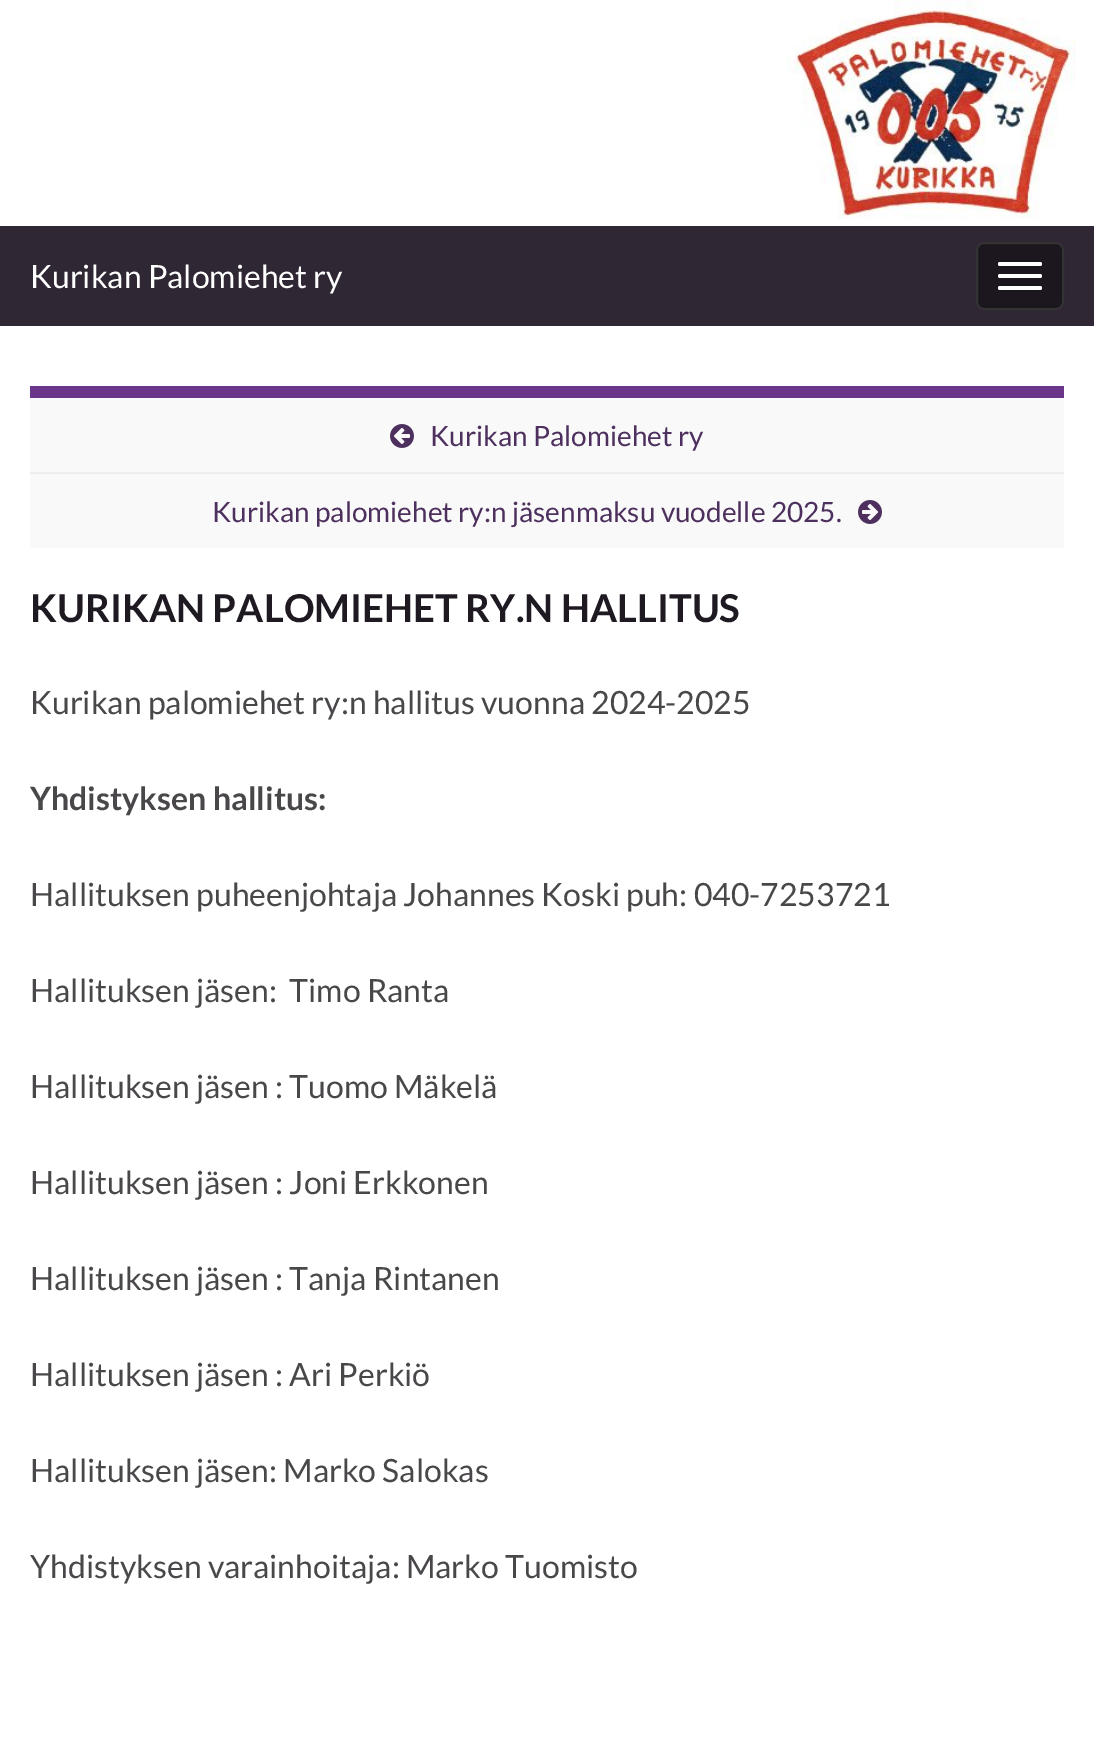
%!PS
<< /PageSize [1094 1751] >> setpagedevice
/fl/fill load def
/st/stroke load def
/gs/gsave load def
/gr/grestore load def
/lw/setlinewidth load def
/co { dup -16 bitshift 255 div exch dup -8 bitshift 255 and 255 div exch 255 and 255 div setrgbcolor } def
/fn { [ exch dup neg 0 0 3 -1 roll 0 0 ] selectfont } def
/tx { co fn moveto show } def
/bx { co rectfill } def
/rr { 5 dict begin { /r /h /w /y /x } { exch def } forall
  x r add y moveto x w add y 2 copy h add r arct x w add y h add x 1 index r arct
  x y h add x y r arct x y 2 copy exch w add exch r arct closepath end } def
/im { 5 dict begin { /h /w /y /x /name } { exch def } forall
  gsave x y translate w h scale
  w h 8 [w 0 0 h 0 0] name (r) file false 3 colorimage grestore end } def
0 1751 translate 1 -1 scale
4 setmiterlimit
0 0 1094 1751 16#FFFFFF bx
(media/1.raw) 787 0 289 219 im
0 226 1094 100 16#2F2733 bx
16#1C171F co
977 243 86 66 7 rr gs fl gr
16#333333 co
2 lw
st
16#FFFFFF co
998 262 44 4 2 rr fl
998 274 44 4 2 rr fl
998 286 44 4 2 rr fl
30 398 1034 150 16#F9F9F9 bx
30 386 1034 12 16#6B3589 bx
(media/2.raw) 390 424 24 24 im
30 472 1034 2 16#EEEEEE bx
(media/3.raw) 858 500 24 24 im
(Kurikan Palomiehet ry) 30 288 /Lato-Regular 32 16#FFFFFF tx
(Kurikan Palomiehet ry) 430 446 /Lato-Regular 28 16#4E305E tx
(Kurikan palomiehet ry:n jäsenmaksu vuodelle 2025.) 212 522 /Lato-Regular 28 16#4E305E tx
(KURIKAN PALOMIEHET RY.N HALLITUS) 30 622 /Lato-Bold 38.4 16#1F1A22 tx
(Kurikan palomiehet ry:n hallitus vuonna 2024-2025) 30 714 /Lato-Regular 32 16#4A474B tx
(Yhdistyksen hallitus:) 30 810 /Lato-Bold 32 16#4A474B tx
(Hallituksen puheenjohtaja Johannes Koski puh: 040-7253721) 30 906 /Lato-Regular 32 16#4A474B tx
(Hallituksen jäsen:  Timo Ranta) 30 1002 /Lato-Regular 32 16#4A474B tx
(Hallituksen jäsen : Tuomo Mäkelä) 30 1098 /Lato-Regular 32 16#4A474B tx
(Hallituksen jäsen : Joni Erkkonen) 30 1194 /Lato-Regular 32 16#4A474B tx
(Hallituksen jäsen : Tanja Rintanen) 30 1290 /Lato-Regular 32 16#4A474B tx
(Hallituksen jäsen : Ari Perkiö) 30 1386 /Lato-Regular 32 16#4A474B tx
(Hallituksen jäsen: Marko Salokas) 30 1482 /Lato-Regular 32 16#4A474B tx
(Yhdistyksen varainhoitaja: Marko Tuomisto) 30 1578 /Lato-Regular 32 16#4A474B tx
showpage
